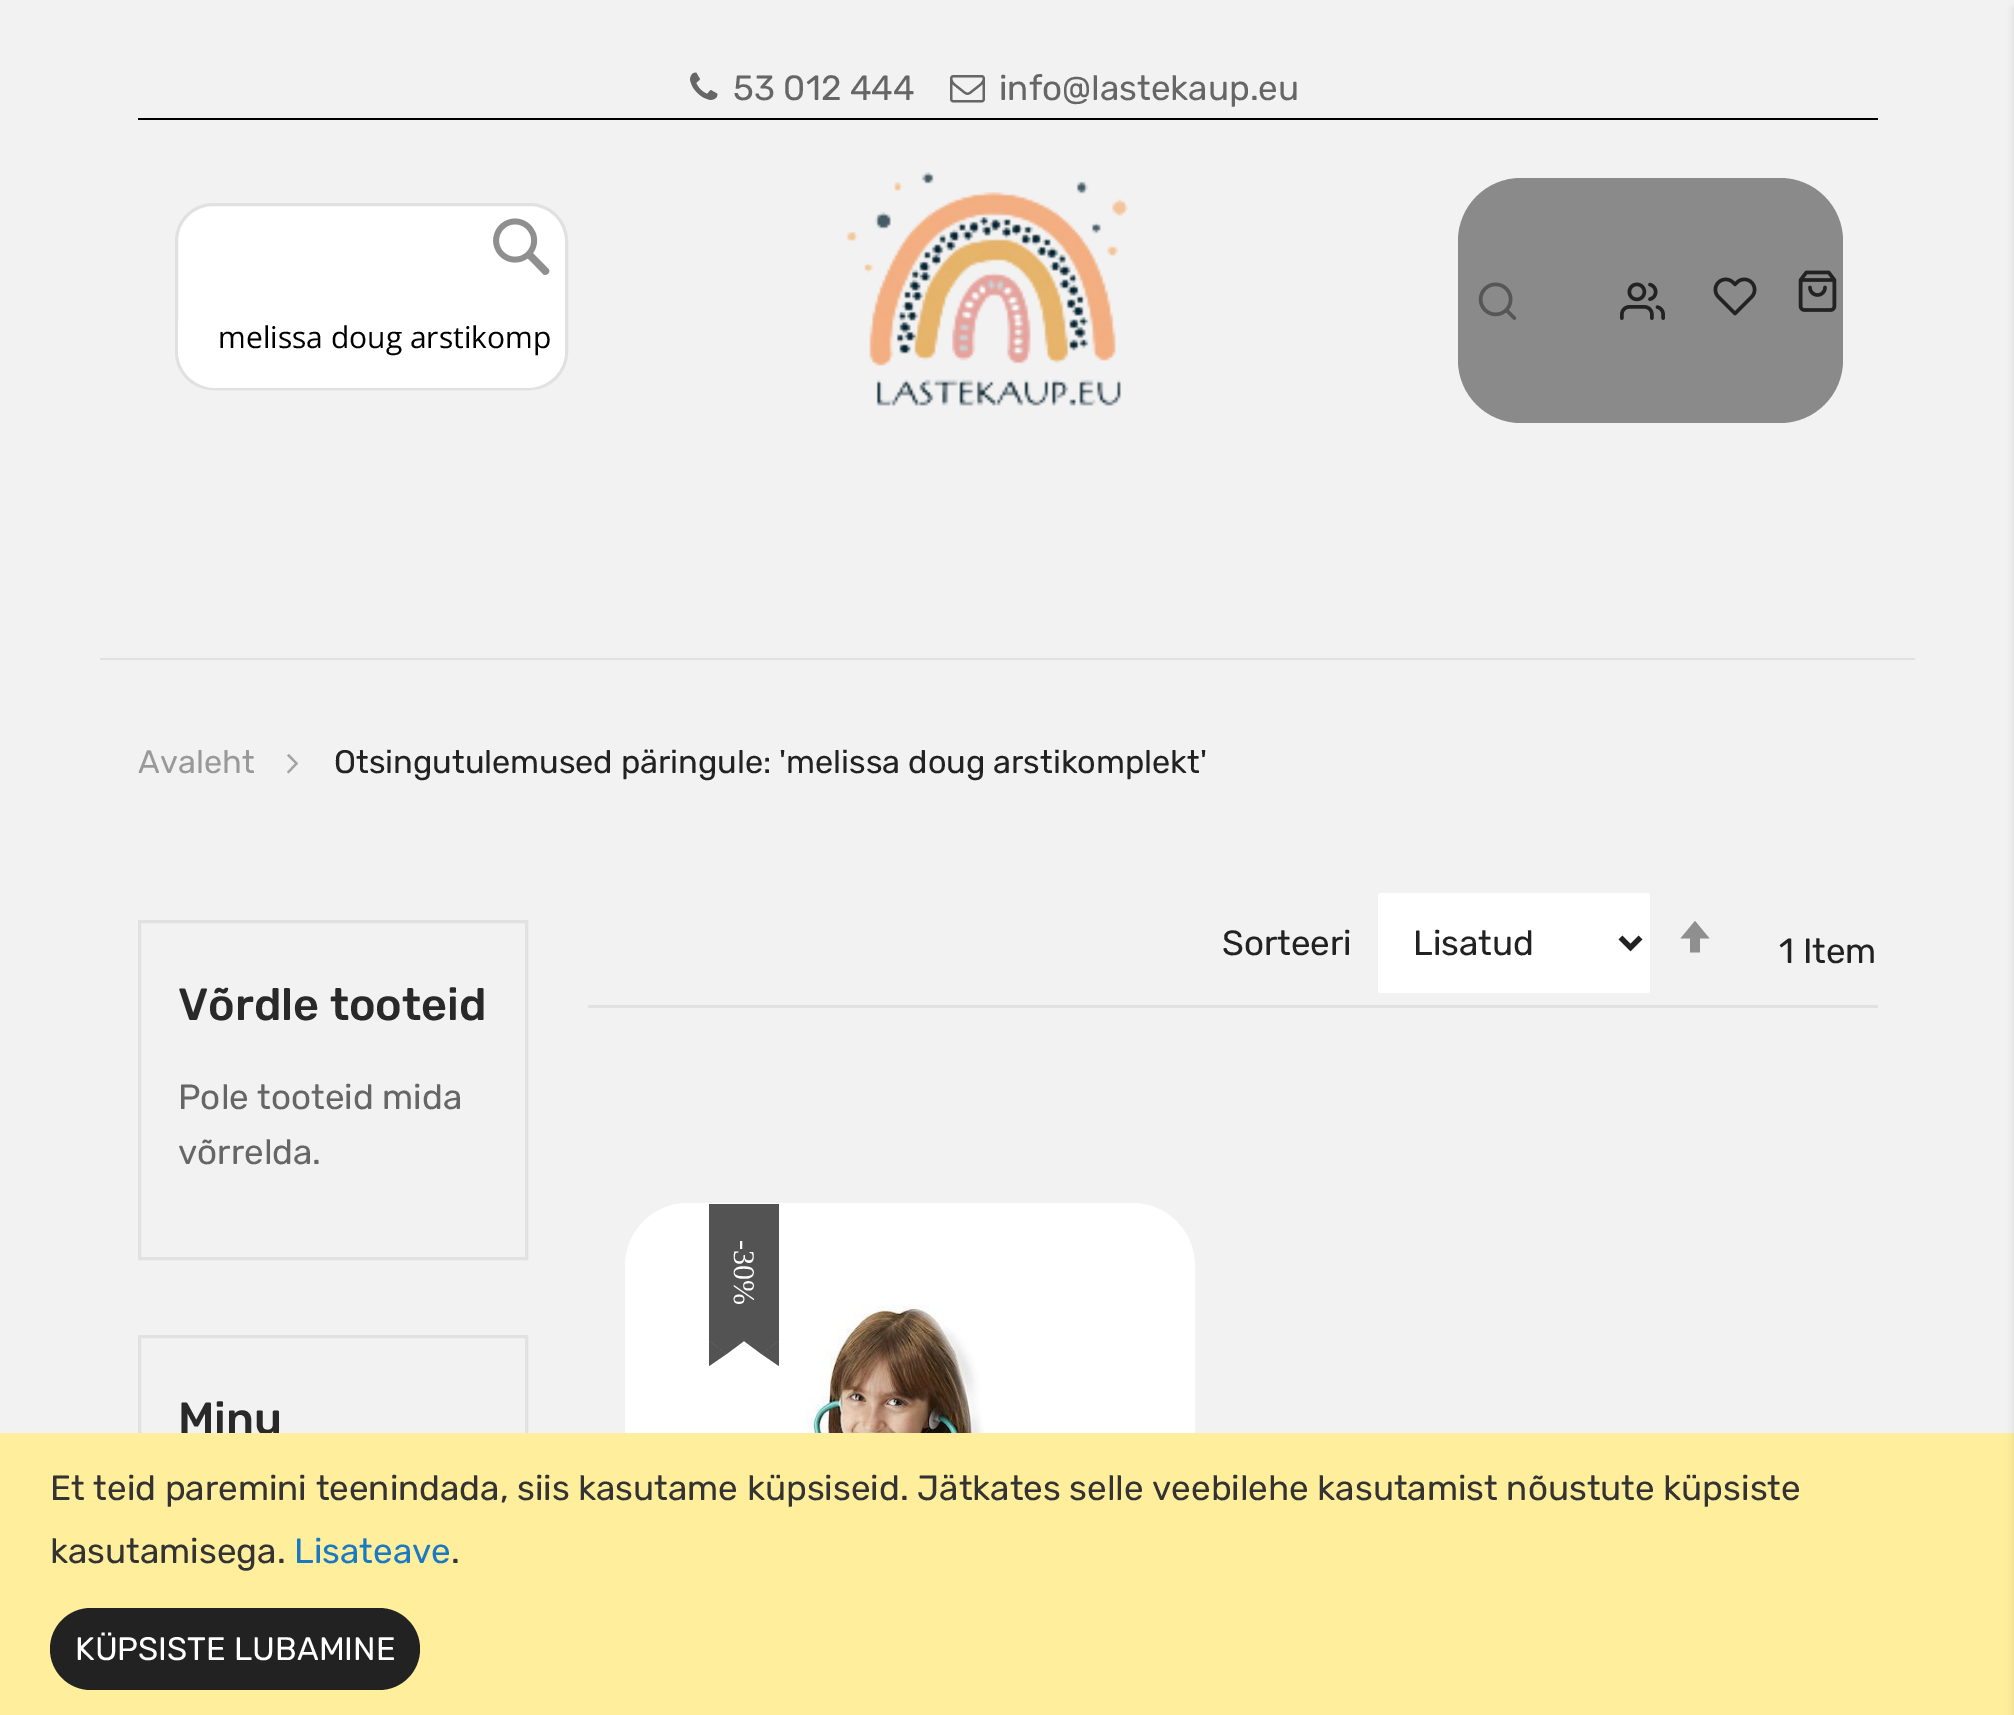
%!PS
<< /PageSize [2014 1715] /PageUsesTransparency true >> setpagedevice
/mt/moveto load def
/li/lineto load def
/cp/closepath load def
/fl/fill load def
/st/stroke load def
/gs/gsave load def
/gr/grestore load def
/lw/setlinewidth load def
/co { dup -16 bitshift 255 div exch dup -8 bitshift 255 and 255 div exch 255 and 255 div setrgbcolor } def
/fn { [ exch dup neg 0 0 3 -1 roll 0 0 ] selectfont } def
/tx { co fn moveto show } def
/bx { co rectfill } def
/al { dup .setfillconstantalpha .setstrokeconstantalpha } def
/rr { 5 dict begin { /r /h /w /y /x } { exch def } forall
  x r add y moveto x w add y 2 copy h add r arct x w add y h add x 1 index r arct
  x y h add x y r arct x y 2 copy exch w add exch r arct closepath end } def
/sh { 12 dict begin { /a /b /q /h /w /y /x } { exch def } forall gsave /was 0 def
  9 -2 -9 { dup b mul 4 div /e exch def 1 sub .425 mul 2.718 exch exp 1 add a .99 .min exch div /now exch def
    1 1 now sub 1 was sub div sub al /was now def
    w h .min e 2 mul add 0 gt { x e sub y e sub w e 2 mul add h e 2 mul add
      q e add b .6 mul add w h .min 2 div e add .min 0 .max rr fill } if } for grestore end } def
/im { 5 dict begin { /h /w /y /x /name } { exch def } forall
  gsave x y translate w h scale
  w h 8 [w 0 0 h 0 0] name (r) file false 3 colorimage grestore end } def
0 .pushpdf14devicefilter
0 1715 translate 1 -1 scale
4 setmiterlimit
0 0 2014 1715 16#F2F2F2 bx
100 658 1815 2 16#E1E1E1 bx
138 118 1740 2 16#000000 bx
(media/1.raw) 690 72 28 28 im
(media/2.raw) 950 75 35 28 im
16#FFFFFF co
176.5 204.5 390 184 36.5 rr gs fl gr
16#E1E1E1 co
3 lw
st
(media/3.raw) 493 218 57 57 im
16#FFFFFF co
178 288 387 100 38 rr fl
(media/6.raw) 1620 282 45 38 im
(media/7.raw) 1713 277 44 39 im
(media/8.raw) 1798 270 39 42 im
0.5 al
16#222222 co
1458 178 385 245 63 rr fl
1 al
(media/4.raw) 1478 282 39 38 im
(media/5.raw) 846 172 283 234 im
16#A3A3A3 co
298 763.5 mt 289 754 li 287 755.5 li 295 763.5 li 287 772 li 288.5 773.5 li cp fl
16#E1E1E1 co
139.5 921.5 387 337 rectstroke
139.5 1336.5 387 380 rectstroke
588 1005 1290 3 16#E1E1E1 bx
16#FFFFFF co
1378 893 272 100 2.5 rr fl
16#222222 co
5 lw
1620.5 937.5 mt 1630.5 947.5 li 1640.5 937.5 li st
16#8F8F8F co
1695 921 mt 1680.5 938.5 li 1690 938.5 li 1690 952.5 li 1700 952.5 li 1700 938.5 li 1709.5 938.5 li cp fl
16#FFFFFF co
625 1203 570 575 63 rr fl
(media/9.raw) 745 1305 330 128 im
709 1204 70 137 16#535353 bx
709 1366 mt 709 1341 li 726.5 1354 li cp fl
709 1341 mt 744 1341 li 726.5 1354 li cp fl
779 1341 mt 779 1366 li 761.5 1354 li cp fl
744 1341 mt 779 1341 li 761.5 1354 li cp fl
(53 012 444) 733 100 /Rubik-Regular 35 16#666666 tx
(info@lastekaup.eu) 999 100 /Rubik-Regular 35 16#666666 tx
(melissa doug arstikomp) 218 348 /OpenSans-Regular 30 16#000000 tx
(Avaleht) 138 773 /Rubik-Regular 32.5 16#999999 tx
(Otsingutulemused päringule: 'melissa doug arstikomplekt') 334 773 /Rubik-Regular 32.5 16#222222 tx
(Võrdle tooteid) 178 1020 /Rubik-Medium 45 16#292929 tx
(Pole tooteid mida) 178 1109 /Rubik-Regular 35 16#666666 tx
(võrrelda.) 178 1164 /Rubik-Regular 35 16#666666 tx
(Minu) 178 1434 /Rubik-Medium 45 16#292929 tx
(Sorteeri) 1222 955 /Rubik-Regular 35 16#222222 tx
(Lisatud) 1413 955 /Rubik-Regular 35 16#222222 tx
(1 Item) 1779 963 /Rubik-Regular 35 16#222222 tx
/LiberationSerif-Regular 30 fn
16#FFFFFF co
gs 734 1240 translate 90 rotate 0 0 mt (-30%) show gr
0 1433 2014 282 16#FFEE9C bx
16#000000 co
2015 8 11 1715 0 4 .15 sh
(Et teid paremini teenindada, siis kasutame küpsiseid. Jätkates selle veebilehe kasutamist nõustute küpsiste) 50 1500 /Rubik-Regular 35 16#333333 tx
(kasutamisega.) 50 1563 /Rubik-Regular 35 16#333333 tx
(Lisateave) 294 1563 /Rubik-Regular 35 16#1979C3 tx
(.) 451 1563 /Rubik-Regular 35 16#333333 tx
16#222222 co
50 1608 370 82 41 rr fl
(KÜPSISTE LUBAMINE) 75 1660 /Rubik-Regular 32.5 16#FFFFFF tx
.poppdf14devicefilter showpage
